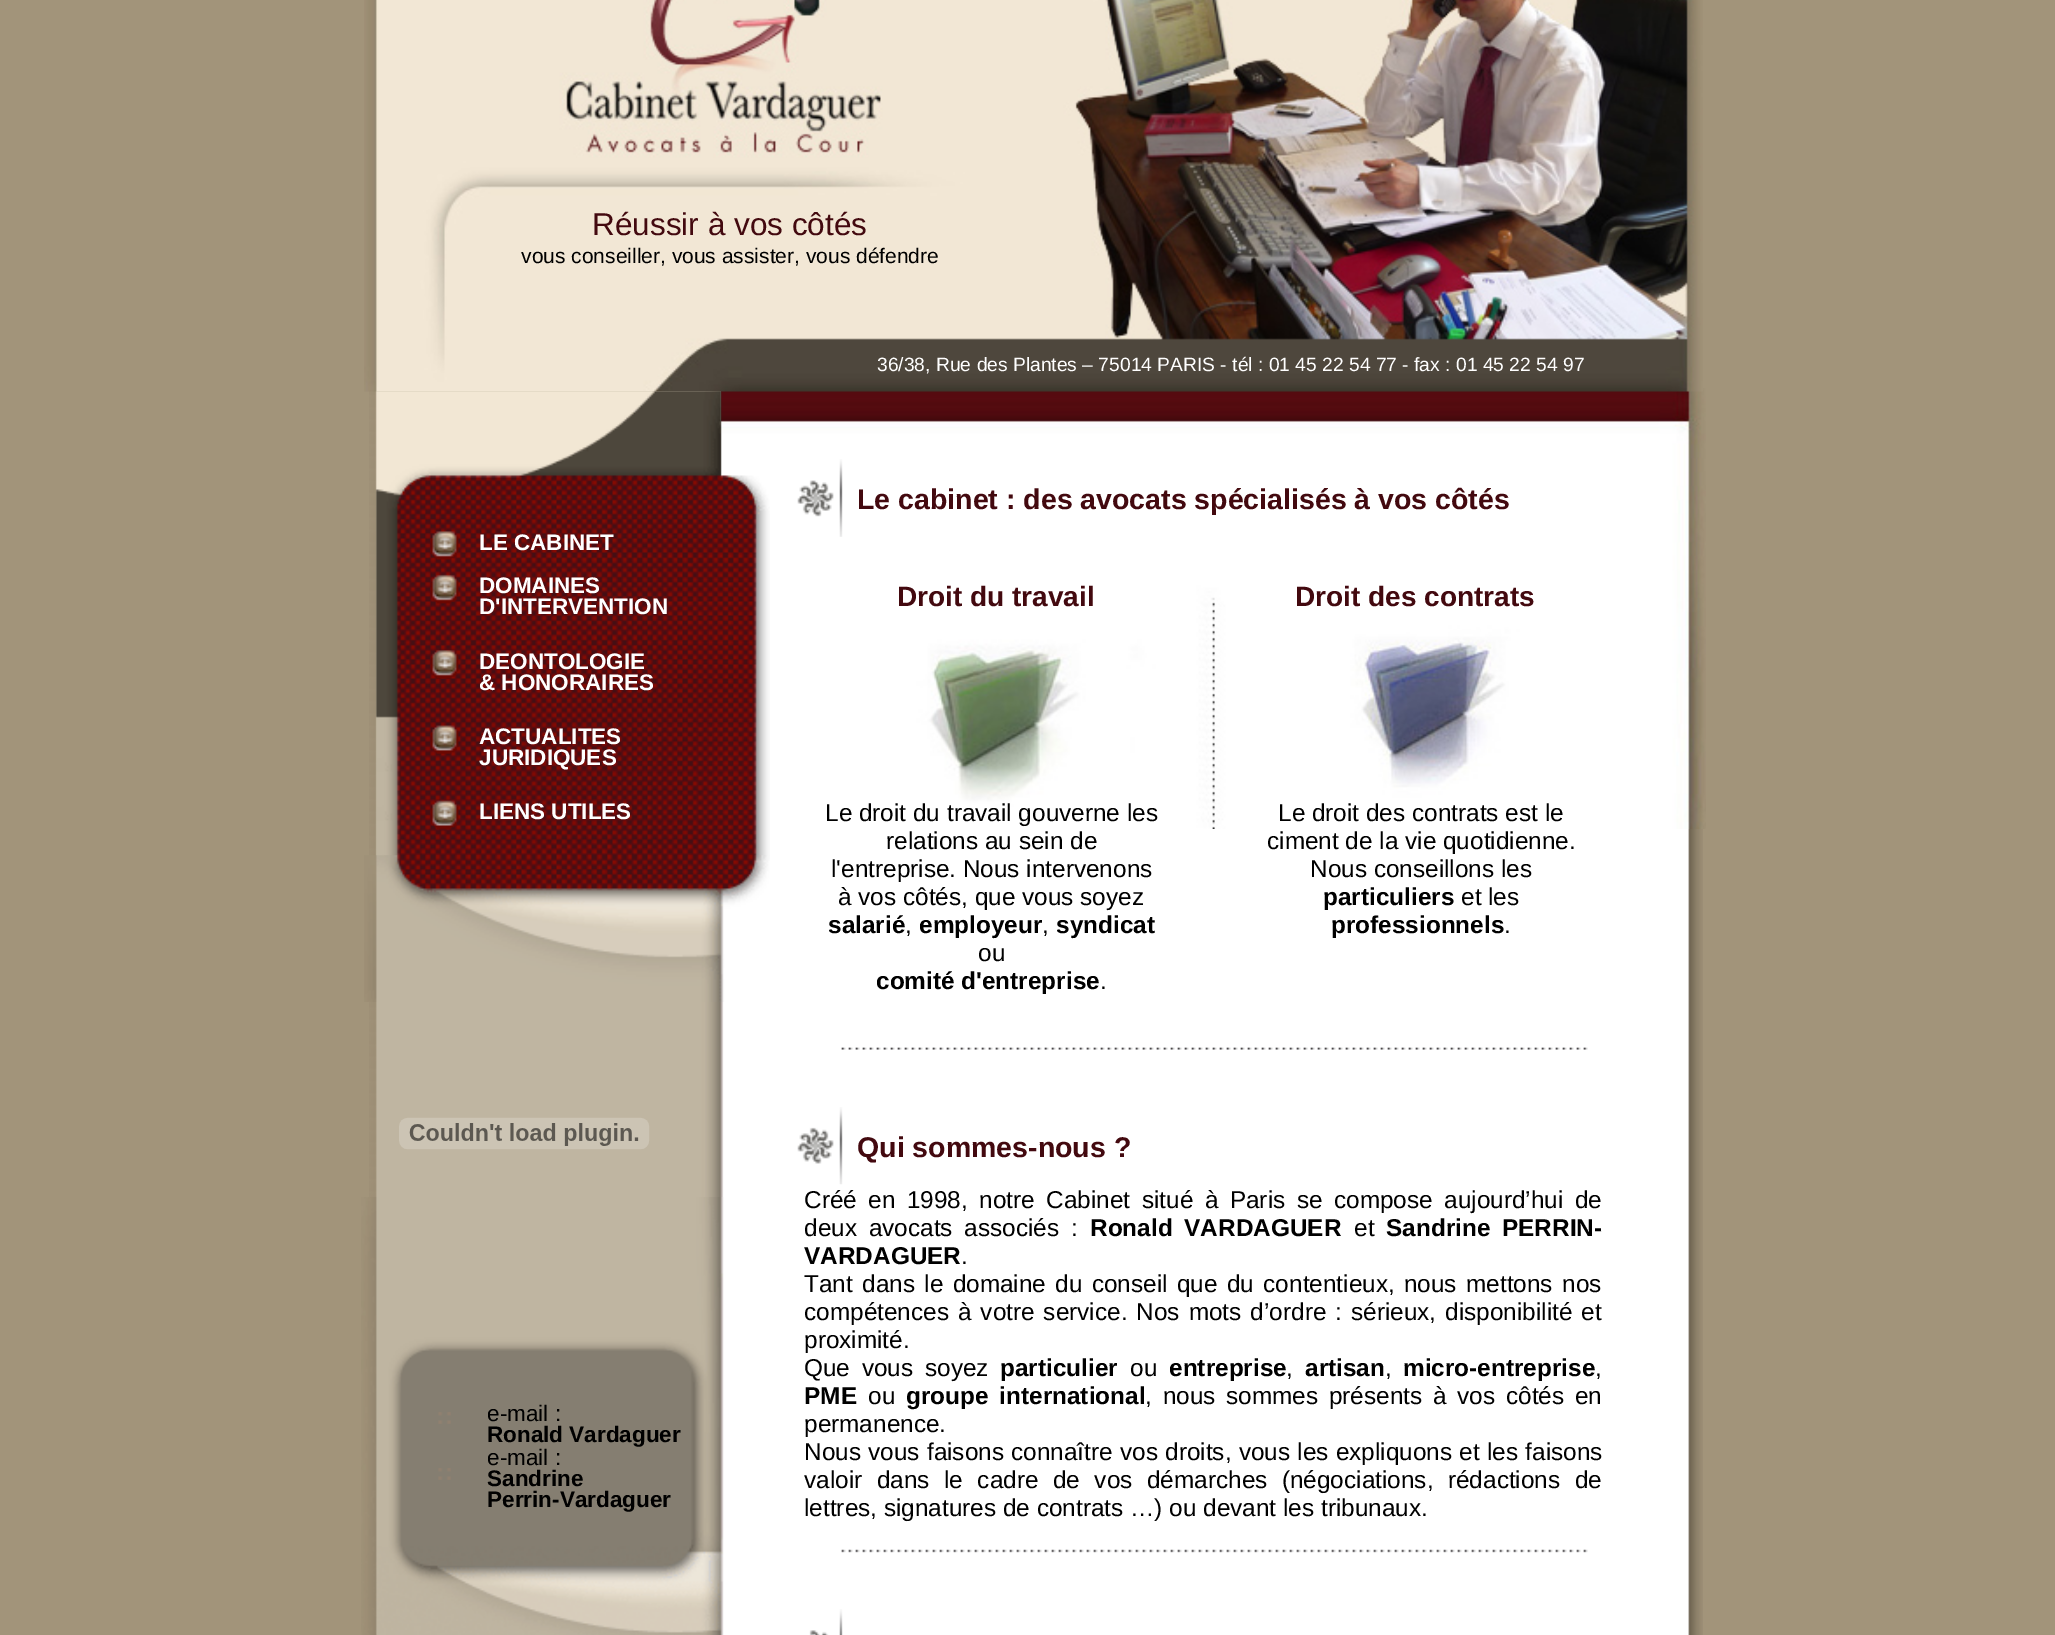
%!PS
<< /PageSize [2055 1635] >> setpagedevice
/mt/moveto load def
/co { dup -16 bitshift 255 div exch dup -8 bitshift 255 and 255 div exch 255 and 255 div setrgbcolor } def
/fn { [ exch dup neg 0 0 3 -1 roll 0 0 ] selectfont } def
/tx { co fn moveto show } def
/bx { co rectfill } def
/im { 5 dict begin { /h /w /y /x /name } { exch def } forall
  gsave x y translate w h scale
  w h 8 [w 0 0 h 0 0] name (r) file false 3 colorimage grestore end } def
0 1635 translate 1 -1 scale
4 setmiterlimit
0 0 2055 1635 16#A2947A bx
(media/1.raw) 369 391 1334 1244 im
(media/10.raw) 721 388 985 441 im
(media/12.raw) 364 0 1339 392 im
(media/2.raw) 375 391 395 465 im
(media/3.raw) 364 855 406 147 im
(media/4.raw) 430 531 29 29 im
(media/5.raw) 430 574 29 30 im
(media/6.raw) 430 650 29 29 im
(media/7.raw) 430 725 29 30 im
(media/8.raw) 430 800 29 30 im
(media/9.raw) 399 1117 251 33 im
(media/11.raw) 797 459 46 78 im
(media/13.raw) 361 1197 363 438 im
(media/14.raw) 438 1412 13 12 im
(media/14.raw) 438 1468 13 12 im
(media/15.raw) 841 1047 747 3 im
(media/16.raw) 797 1107 46 78 im
(media/17.raw) 841 1549 747 4 im
(media/18.raw) 809 1609 34 26 im
(Réussir à vos côtés) 592 235 /LiberationSans-Regular 31.5 16#43090F tx
(vous conseiller, vous assister, vous défendre) 521 263 /LiberationSans-Regular 21 16#000000 tx
(36/38, Rue des Plantes – 75014 PARIS - tél : 01 45 22 54 77 - fax : 01 45 22 54 97) 877 371 /LiberationSans-Regular 19.25 16#FFFFFF tx
(LE CABINET) 479 550 /LiberationSans-Bold 22.5 16#FFFFFF tx
(DOMAINES) 479 593 /LiberationSans-Bold 22.5 16#FFFFFF tx
(D'INTERVENTION) 479 614 /LiberationSans-Bold 22.5 16#FFFFFF tx
(DEONTOLOGIE) 479 669 /LiberationSans-Bold 22.5 16#FFFFFF tx
(& HONORAIRES) 479 690 /LiberationSans-Bold 22.5 16#FFFFFF tx
(ACTUALITES) 479 744 /LiberationSans-Bold 22.5 16#FFFFFF tx
(JURIDIQUES) 479 765 /LiberationSans-Bold 22.5 16#FFFFFF tx
(LIENS UTILES) 479 819 /LiberationSans-Bold 22.5 16#FFFFFF tx
(Le cabinet : des avocats spécialisés à vos côtés) 857 509 /LiberationSans-Bold 28.5 16#43090F tx
(Droit du travail) 897 606 /LiberationSans-Bold 28 16#43090F tx
(Droit des contrats) 1295 606 /LiberationSans-Bold 28 16#43090F tx
(Le droit du travail gouverne les) 825 821 /LiberationSans-Regular 24.35 16#000000 tx
(relations au sein de) 886 849 /LiberationSans-Regular 24.35 16#000000 tx
(l'entreprise. Nous intervenons) 831 877 /LiberationSans-Regular 24.35 16#000000 tx
(à vos côtés, que vous soyez) 838 905 /LiberationSans-Regular 24.35 16#000000 tx
(salarié) 828 933 /LiberationSans-Bold 24.35 16#000000 tx
(,) 905 933 /LiberationSans-Regular 24.35 16#000000 tx
(employeur) 919 933 /LiberationSans-Bold 24.35 16#000000 tx
(,) 1042 933 /LiberationSans-Regular 24.35 16#000000 tx
(syndicat) 1056 933 /LiberationSans-Bold 24.35 16#000000 tx
(ou) 978 961 /LiberationSans-Regular 24.35 16#000000 tx
(comité d'entreprise) 876 989 /LiberationSans-Bold 24.35 16#000000 tx
(.) 1100 989 /LiberationSans-Regular 24.35 16#000000 tx
(Le droit des contrats est le) 1278 821 /LiberationSans-Regular 24.35 16#000000 tx
(ciment de la vie quotidienne.) 1267 849 /LiberationSans-Regular 24.35 16#000000 tx
(Nous conseillons les) 1310 877 /LiberationSans-Regular 24.35 16#000000 tx
(particuliers) 1323 905 /LiberationSans-Bold 24.35 16#000000 tx
(et les) 1461 905 /LiberationSans-Regular 24.35 16#000000 tx
(professionnels) 1331 933 /LiberationSans-Bold 24.35 16#000000 tx
(.) 1504 933 /LiberationSans-Regular 24.35 16#000000 tx
(e-mail :) 487 1421 /LiberationSans-Regular 22.5 16#000000 tx
(Ronald Vardaguer) 487 1442 /LiberationSans-Bold 22.5 16#000000 tx
(e-mail :) 487 1465 /LiberationSans-Regular 22.5 16#000000 tx
(Sandrine) 487 1486 /LiberationSans-Bold 22.5 16#000000 tx
(Perrin-Vardaguer) 487 1507 /LiberationSans-Bold 22.5 16#000000 tx
(Qui sommes-nous ?) 857 1157 /LiberationSans-Bold 28.5 16#43090F tx
/LiberationSans-Regular 24.35 fn
16#000000 co
804 1208 mt 4.75 0 32 (Créé en 1998, notre Cabinet situé à Paris se compose aujourd’hui de) widthshow
804 1236 mt 5 0 32 (deux avocats associés :) widthshow
/LiberationSans-Bold 24.35 fn
1090 1236 mt 5 0 32 (Ronald VARDAGUER) widthshow
(et) 1354 1236 /LiberationSans-Regular 24.35 16#000000 tx
/LiberationSans-Bold 24.35 fn
1386 1236 mt 5 0 32 (Sandrine PERRIN-) widthshow
(VARDAGUER) 804 1264 /LiberationSans-Bold 24.35 16#000000 tx
(.) 961 1264 /LiberationSans-Regular 24.35 16#000000 tx
804 1292 mt 2.6 0 32 (Tant dans le domaine du conseil que du contentieux, nous mettons nos) widthshow
804 1320 mt 2.25 0 32 (compétences à votre service. Nos mots d’ordre : sérieux, disponibilité et) widthshow
(proximité.) 804 1348 /LiberationSans-Regular 24.35 16#000000 tx
804 1376 mt 5 0 32 (Que vous soyez) widthshow
(particulier) 1000 1376 /LiberationSans-Bold 24.35 16#000000 tx
(ou) 1130 1376 /LiberationSans-Regular 24.35 16#000000 tx
(entreprise) 1169 1376 /LiberationSans-Bold 24.35 16#000000 tx
(,) 1286 1376 /LiberationSans-Regular 24.35 16#000000 tx
(artisan) 1305 1376 /LiberationSans-Bold 24.35 16#000000 tx
(,) 1385 1376 /LiberationSans-Regular 24.35 16#000000 tx
(micro-entreprise) 1403 1376 /LiberationSans-Bold 24.35 16#000000 tx
(,) 1595 1376 /LiberationSans-Regular 24.35 16#000000 tx
(PME) 804 1404 /LiberationSans-Bold 24.35 16#000000 tx
(ou) 868 1404 /LiberationSans-Regular 24.35 16#000000 tx
/LiberationSans-Bold 24.35 fn
906 1404 mt 4 0 32 (groupe international) widthshow
/LiberationSans-Regular 24.35 fn
1145 1404 mt 4 0 32 (, nous sommes présents à vos côtés en) widthshow
(permanence.) 804 1432 /LiberationSans-Regular 24.35 16#000000 tx
804 1460 mt .5 0 32 (Nous vous faisons connaître vos droits, vous les expliquons et les faisons) widthshow
804 1488 mt 7.75 0 32 (valoir dans le cadre de vos démarches \(négociations, rédactions de) widthshow
(lettres, signatures de contrats …\) ou devant les tribunaux.) 804 1516 /LiberationSans-Regular 24.35 16#000000 tx
showpage
